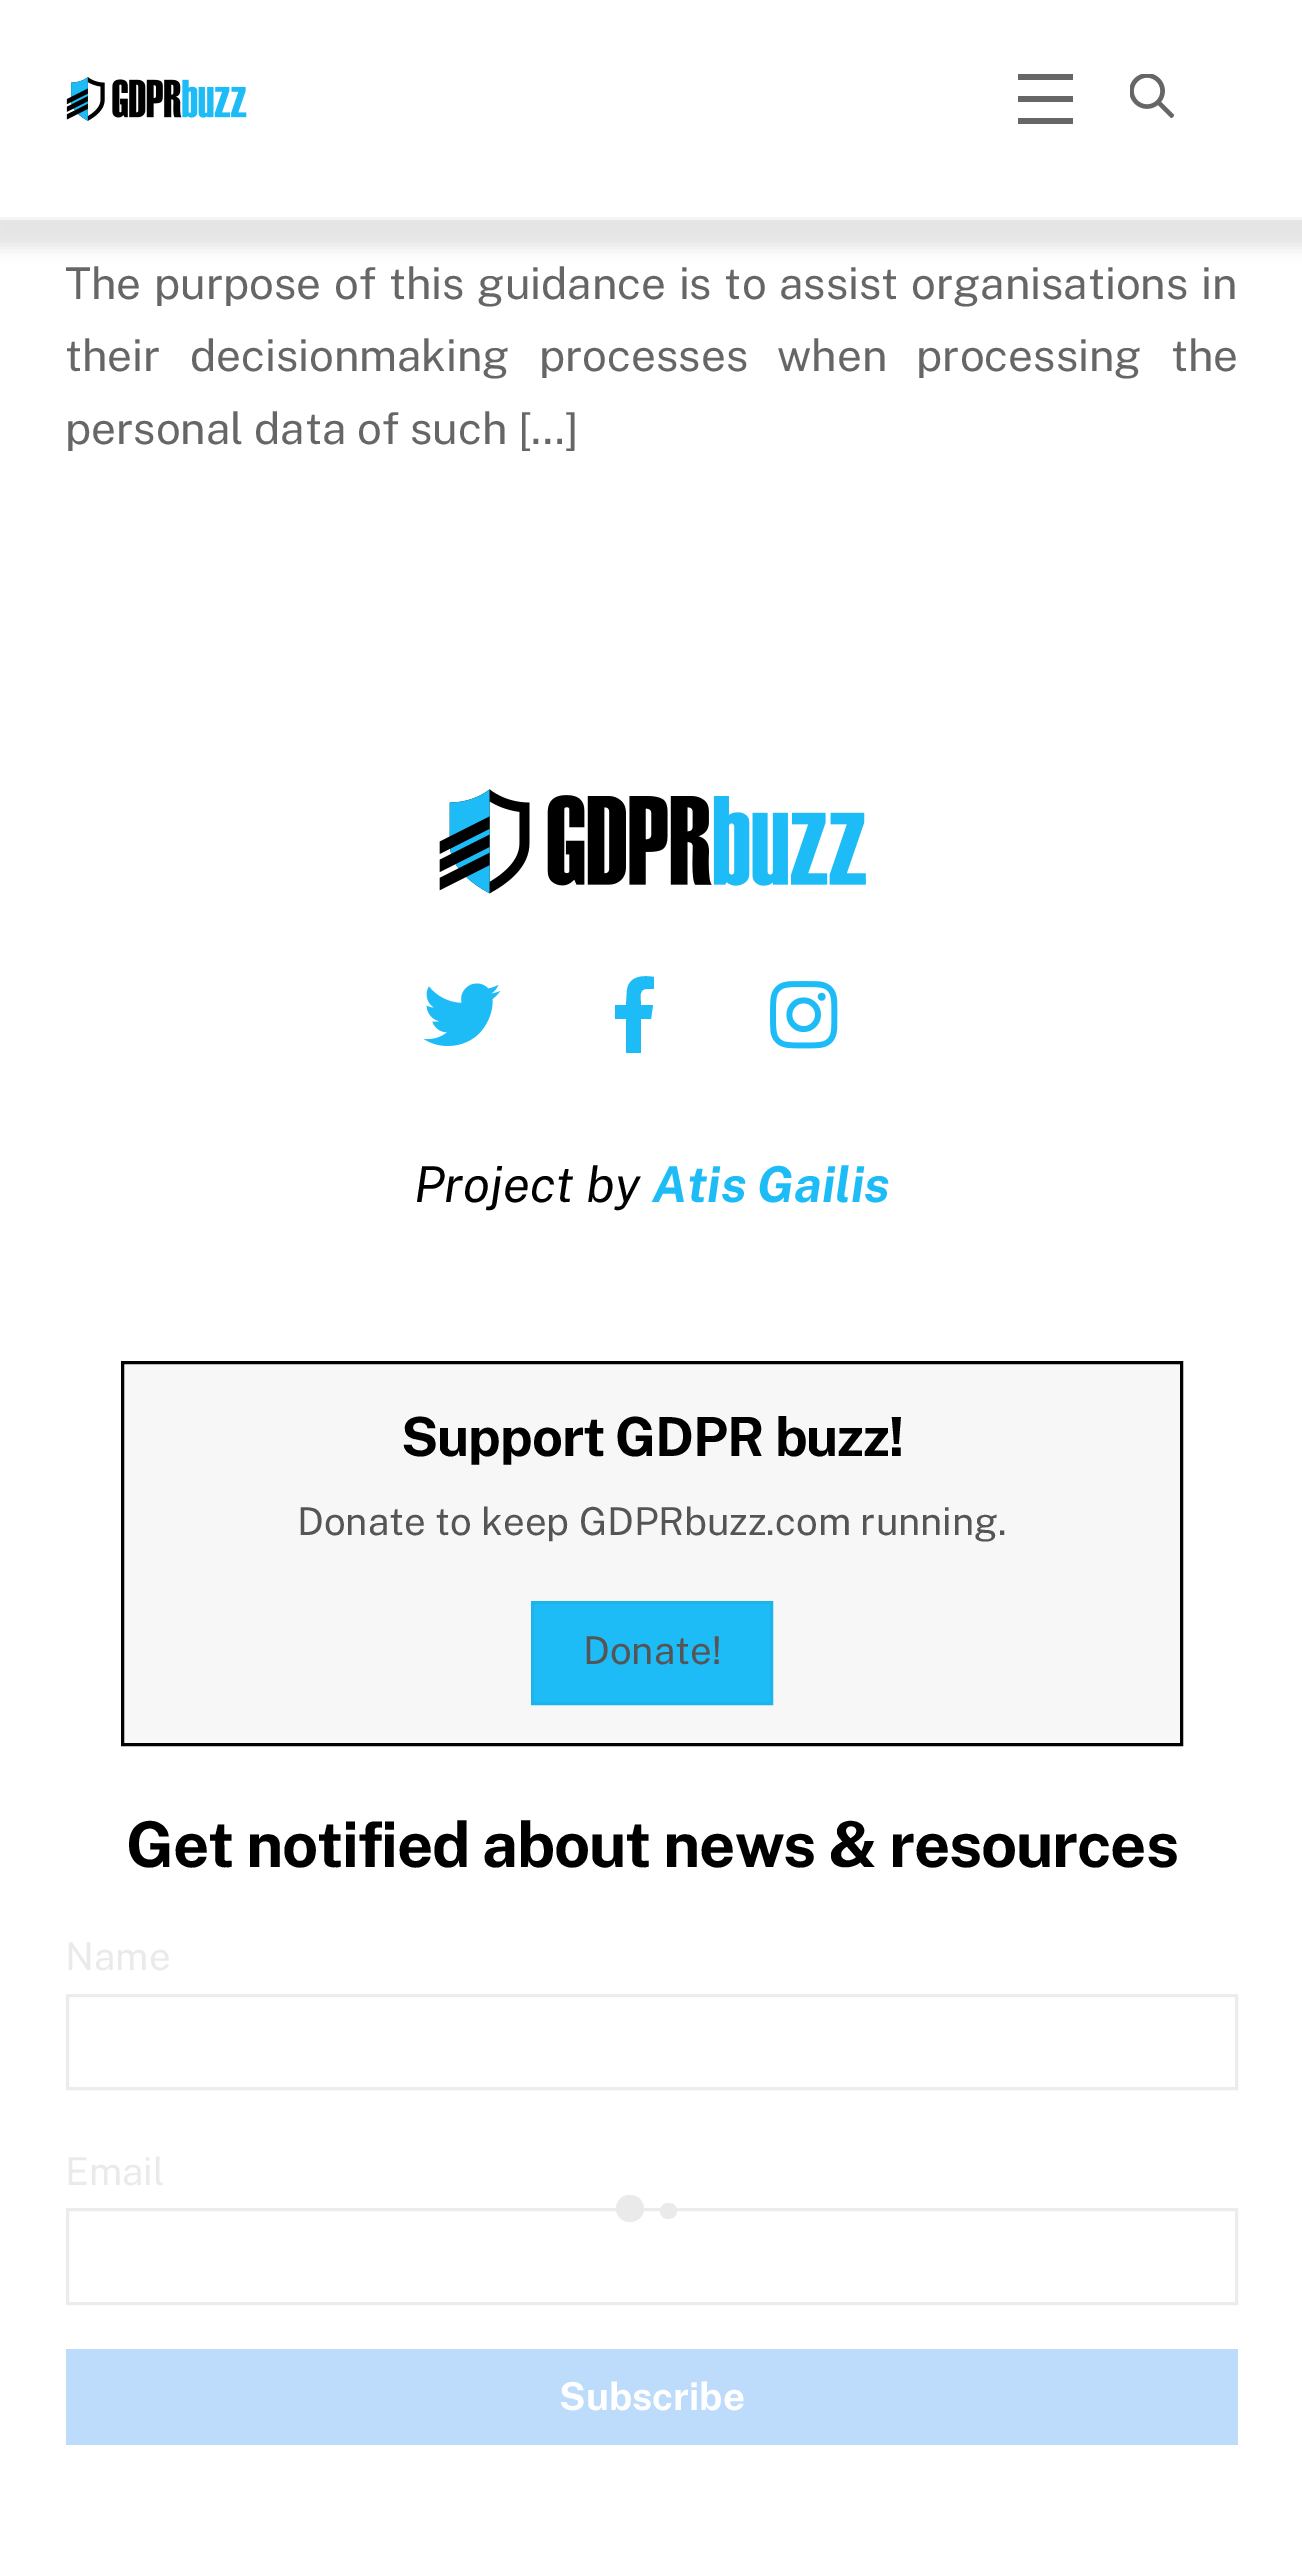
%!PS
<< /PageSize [1302 2574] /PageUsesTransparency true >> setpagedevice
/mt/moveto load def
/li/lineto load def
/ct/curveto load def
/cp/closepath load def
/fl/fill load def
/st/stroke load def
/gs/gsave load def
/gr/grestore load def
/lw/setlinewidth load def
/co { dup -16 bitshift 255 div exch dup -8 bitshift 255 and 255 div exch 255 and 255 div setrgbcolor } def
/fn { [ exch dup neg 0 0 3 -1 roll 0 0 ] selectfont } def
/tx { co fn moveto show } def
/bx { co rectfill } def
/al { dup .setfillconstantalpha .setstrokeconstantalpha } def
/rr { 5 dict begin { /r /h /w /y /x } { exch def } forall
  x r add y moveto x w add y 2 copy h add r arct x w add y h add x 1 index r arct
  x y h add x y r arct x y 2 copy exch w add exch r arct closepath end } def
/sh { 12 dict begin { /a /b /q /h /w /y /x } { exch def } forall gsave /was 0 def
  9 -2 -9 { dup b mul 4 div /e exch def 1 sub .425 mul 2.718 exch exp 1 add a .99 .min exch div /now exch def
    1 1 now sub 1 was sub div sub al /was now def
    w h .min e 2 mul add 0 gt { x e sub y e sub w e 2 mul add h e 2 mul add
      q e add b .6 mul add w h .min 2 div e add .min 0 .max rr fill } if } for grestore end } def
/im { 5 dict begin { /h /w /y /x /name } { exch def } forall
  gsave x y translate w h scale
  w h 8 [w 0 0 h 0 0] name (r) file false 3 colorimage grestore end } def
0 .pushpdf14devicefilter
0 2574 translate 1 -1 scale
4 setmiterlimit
0 0 1302 2574 16#FFFFFF bx
16#000000 co
-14 0 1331 248 0 7 .1 sh
0 0 1302 217 16#FFFFFF bx
0 217 1302 3 16#F5F5F5 bx
(media/1.raw) 66 77 181 44 im
1018 118 55 6 16#666666 bx
1018 74 55 6 16#666666 bx
1018 96 55 6 16#666666 bx
(media/2.raw) 1130 74 44 44 im
(media/3.raw) 439 789 427 105 im
(media/4.raw) 424 983 77 64 im
16#1EBCF7 co
647 989 mt 638 989 641 999 641 1005 ct 653 1005 li 651 1019 li 641 1019 li 641 1053 li 626 1053 li 626 1019 li 615 1019 li 615 1005 li 626 1005 li 627 990 li 629 976 643 975 654 977 ct 654 989 li cp fl
(media/5.raw) 770 981 68 68 im
16#F7F7F7 co
122.5 1362.5 mt 1181.5 1362.5 li 1181.5 1744.5 li 122.5 1744.5 li cp gs fl gr
16#000000 co
3 lw
st
16#1EBCF7 co
532.5 1602.5 mt 771.5 1602.5 li 771.5 1703.5 li 532.5 1703.5 li cp gs fl gr
16#1DB3EB co
st
16#ECECEC co
67.5 1995.5 1169 93 rectstroke
67.5 2209.5 1169 94 rectstroke
66 2349 1172 96 16#BDDBFA bx
16#EAEAEA co
616 2195 28 27 13.5 rr fl
660 2203 17 16 8 rr fl
/PublicSans-Regular 44 fn
16#666666 co
65 299 mt 2 0 32 (The purpose of this guidance is to assist organisations in) widthshow
65 371 mt 18.5 0 32 (their decisionmaking processes when processing the) widthshow
(personal data of such […]) 65 444 /PublicSans-Regular 44 16#666666 tx
(Project by) 414 1202 /PublicSans-Italic 49.5 16#000000 tx
(Atis Gailis) 652 1202 /PublicSans-BoldItalic 49.5 16#1EBCF7 tx
/PublicSans-Bold 54 fn
16#000000 co
401 1456 mt -1.1 0 (Support GDPR buzz!) ashow
(Donate to keep GDPRbuzz.com running.) 297 1535 /PublicSans-Regular 38.5 16#555555 tx
(Donate!) 583 1664 /PublicSans-Regular 38.5 16#555555 tx
/PublicSans-Bold 63.1 fn
16#000000 co
126 1867 mt -1.25 0 (Get notified about news & resources) ashow
(Name) 65 1970 /PublicSans-Regular 38.5 16#EAEAEA tx
(Email) 65 2185 /PublicSans-Regular 38.5 16#EAEAEA tx
(Subscribe) 559 2410 /PublicSans-Bold 38.5 16#FFFFFF tx
.poppdf14devicefilter showpage
